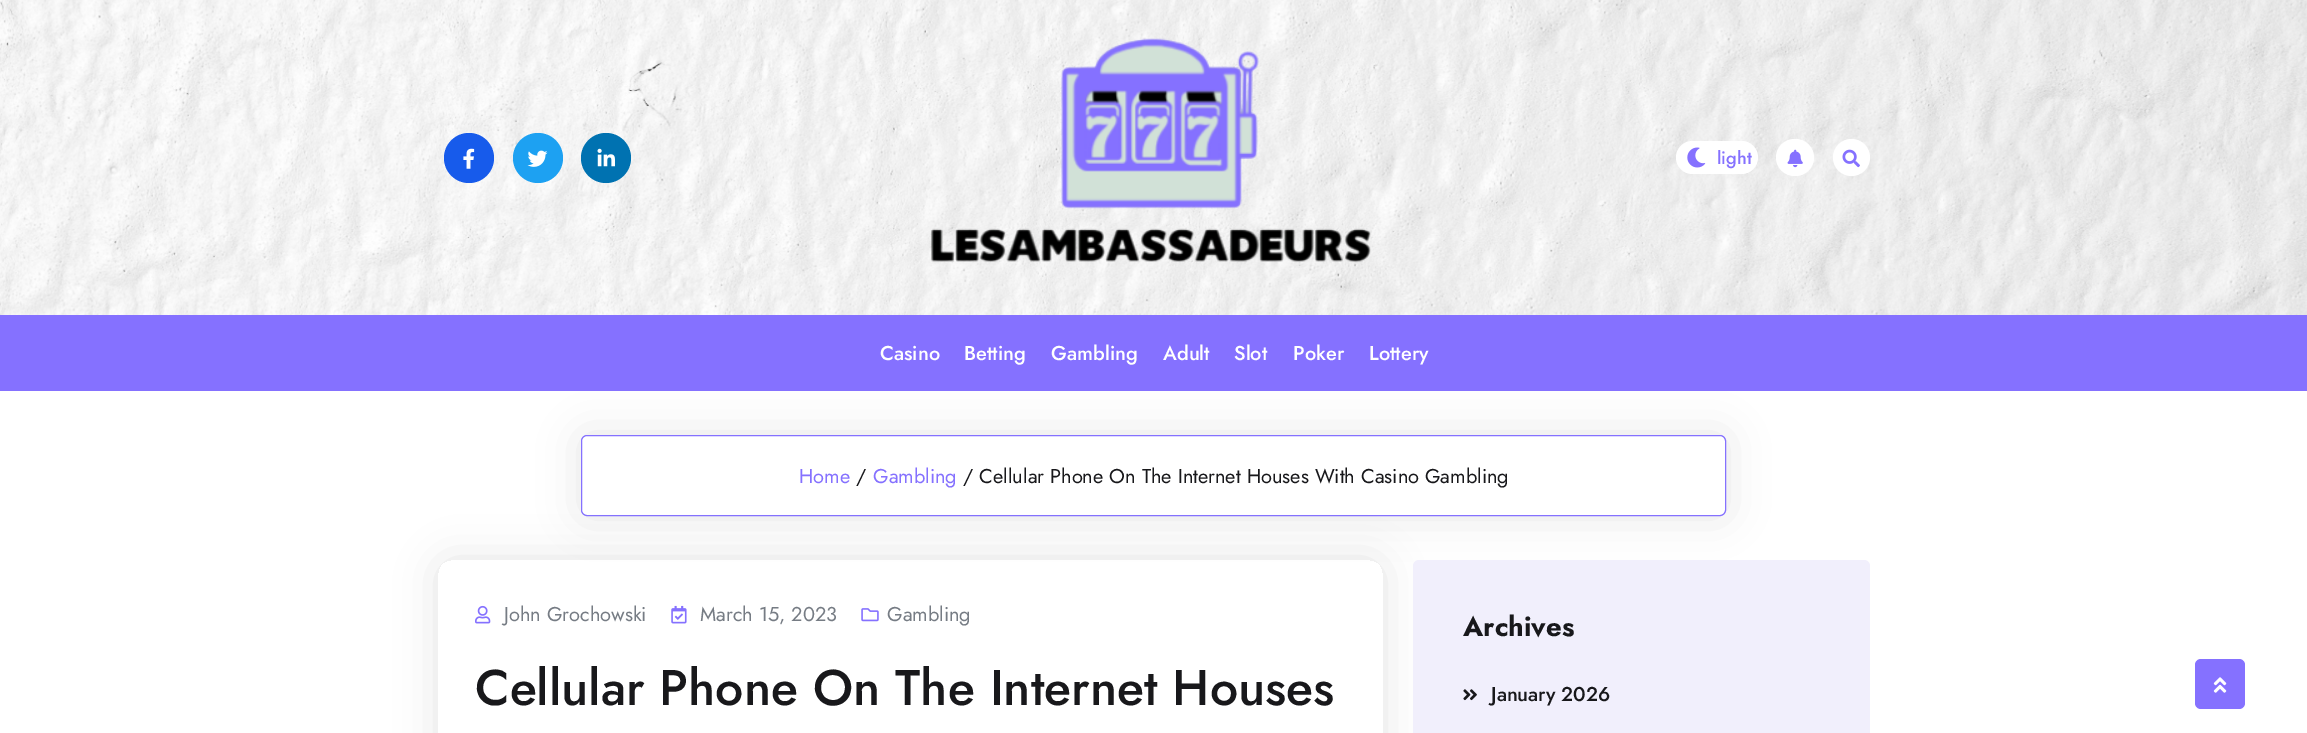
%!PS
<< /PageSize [2307 733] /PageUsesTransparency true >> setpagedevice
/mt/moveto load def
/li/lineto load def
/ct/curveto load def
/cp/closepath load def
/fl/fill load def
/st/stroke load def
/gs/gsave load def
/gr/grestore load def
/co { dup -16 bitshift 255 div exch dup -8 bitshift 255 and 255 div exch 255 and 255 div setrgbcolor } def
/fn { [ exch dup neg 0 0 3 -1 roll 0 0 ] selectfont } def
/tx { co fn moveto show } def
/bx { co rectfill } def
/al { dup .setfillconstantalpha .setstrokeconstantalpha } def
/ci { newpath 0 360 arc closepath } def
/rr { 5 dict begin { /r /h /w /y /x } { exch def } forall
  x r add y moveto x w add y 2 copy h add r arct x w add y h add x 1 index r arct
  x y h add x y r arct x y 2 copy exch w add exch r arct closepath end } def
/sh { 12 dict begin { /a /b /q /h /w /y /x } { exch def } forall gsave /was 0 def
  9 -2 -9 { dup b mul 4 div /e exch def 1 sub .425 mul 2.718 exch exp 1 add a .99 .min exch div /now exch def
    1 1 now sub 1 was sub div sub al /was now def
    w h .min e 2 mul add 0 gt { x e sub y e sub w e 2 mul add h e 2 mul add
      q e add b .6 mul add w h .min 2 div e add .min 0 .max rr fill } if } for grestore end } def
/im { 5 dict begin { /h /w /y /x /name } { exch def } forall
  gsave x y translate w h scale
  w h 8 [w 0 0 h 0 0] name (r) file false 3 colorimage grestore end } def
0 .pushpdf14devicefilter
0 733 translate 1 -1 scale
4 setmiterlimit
0 0 2307 733 16#FFFFFF bx
(media/1.raw) 0 0 2307 315 im
16#175BEB co
469 158 25 ci fl
(media/2.raw) 463 148 12 21 im
16#1DA1F2 co
538 158 25 ci fl
(media/3.raw) 527 150 21 17 im
16#0072B1 co
606 158 25 ci fl
(media/4.raw) 597 148 18 19 im
(media/5.raw) 931 38 440 225 im
16#FFFFFF co
1676 141 82 33 16.5 rr fl
(media/6.raw) 1687 147 19 21 im
1776 139 38 37 18.5 rr fl
(media/7.raw) 1787 149 16 19 im
1851.5 157.5 18.5 ci fl
(media/8.raw) 1842 149 18 19 im
gs
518 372 mt 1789 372 li 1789 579 li 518 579 li cp 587 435 mt 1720 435 li 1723.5 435 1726 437.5 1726 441 ct 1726 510 li 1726 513.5 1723.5 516 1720 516 ct 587 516 li 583.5 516 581 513.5 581 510 ct 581 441 li 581 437.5 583.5 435 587 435 ct cp eoclip newpath
16#000000 co
581 435 1145 81 6 20.5 .1 sh
gr
0 315 2307 76 16#8571FF bx
581.5 435.5 1144 80 5.5 rr st
gs
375 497 mt 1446 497 li 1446 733 li 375 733 li cp 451 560 mt 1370 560 li 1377 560 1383 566 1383 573 ct 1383 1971 li 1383 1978 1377 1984 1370 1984 ct 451 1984 li 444 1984 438 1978 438 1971 ct 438 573 li 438 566 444 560 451 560 ct cp eoclip newpath
16#000000 co
438 560 945 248 13 20.5 .11 sh
gr
(media/9.raw) 475 605 16 19 im
(media/10.raw) 671 605 16 19 im
(media/11.raw) 861 608 18 14 im
16#F1EFFC co
1413 560 457 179 6 rr fl
(media/12.raw) 1463 689 14 12 im
16#8571FF co
2195 659 50 50 6 rr fl
(media/13.raw) 2213 677 14 16 im
(light) 1717 164 /Jost-Medium 18 16#8571FF tx
(Casino) 880 360 /Jost-Medium 20 16#FFFFFF tx
(Betting) 964 360 /Jost-Medium 20 16#FFFFFF tx
(Gambling) 1051 360 /Jost-Medium 20 16#FFFFFF tx
(Adult) 1163 360 /Jost-Medium 20 16#FFFFFF tx
(Slot) 1234 360 /Jost-Medium 20 16#FFFFFF tx
(Poker) 1293 360 /Jost-Medium 20 16#FFFFFF tx
(Lottery) 1369 360 /Jost-Medium 20 16#FFFFFF tx
(Home) 799 483 /Jost-Regular 20 16#8571FF tx
(/) 856 483 /Jost-Regular 20 16#18181B tx
(Gambling) 873 483 /Jost-Regular 20 16#8571FF tx
(/ Cellular Phone On The Internet Houses With Casino Gambling) 963 483 /Jost-Regular 20 16#18181B tx
(John Grochowski) 504 621 /Jost-Regular 20 16#767C84 tx
(March 15, 2023) 700 621 /Jost-Regular 20 16#767C84 tx
(Gambling) 887 621 /Jost-Regular 20 16#767C84 tx
(Cellular Phone On The Internet Houses) 475 705 /Jost-Medium 50 16#18181B tx
(Archives) 1463 636 /Jost-Bold 27.5 16#18181B tx
(January 2026) 1491 701 /Jost-Medium 20 16#18181B tx
.poppdf14devicefilter showpage
